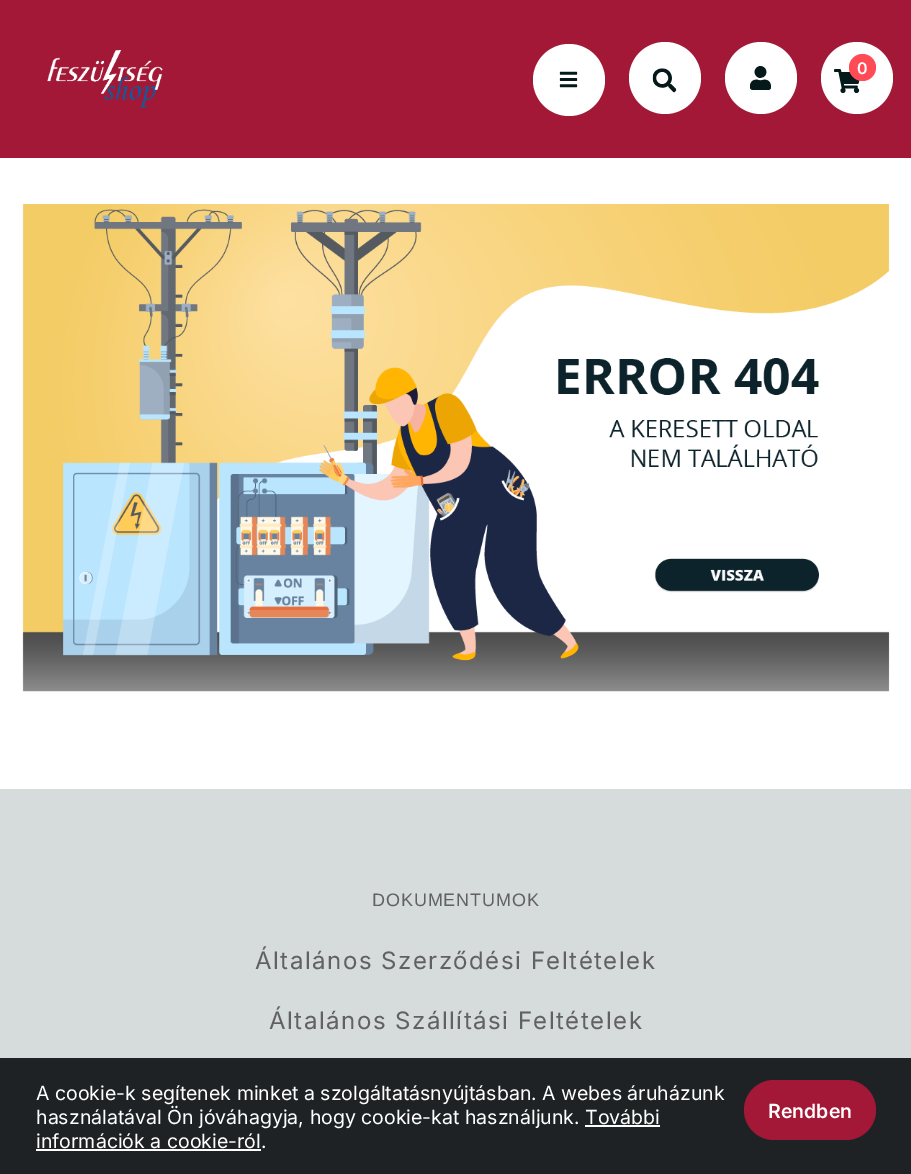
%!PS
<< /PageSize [911 1174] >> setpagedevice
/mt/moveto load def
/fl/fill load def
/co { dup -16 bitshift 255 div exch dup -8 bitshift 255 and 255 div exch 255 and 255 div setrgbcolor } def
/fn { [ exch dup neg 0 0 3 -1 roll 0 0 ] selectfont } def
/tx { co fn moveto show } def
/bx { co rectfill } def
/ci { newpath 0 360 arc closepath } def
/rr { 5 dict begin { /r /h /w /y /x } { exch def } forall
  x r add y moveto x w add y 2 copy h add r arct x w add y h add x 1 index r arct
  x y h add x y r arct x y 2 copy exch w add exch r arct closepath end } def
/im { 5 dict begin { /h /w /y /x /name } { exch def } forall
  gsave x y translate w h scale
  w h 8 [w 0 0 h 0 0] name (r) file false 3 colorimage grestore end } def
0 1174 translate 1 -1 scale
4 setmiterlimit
0 0 911 1174 16#FFFFFF bx
0 0 911 158 16#A31836 bx
(media/1.raw) 47 50 116 58 im
16#FFFFFF co
569 80 36 ci fl
(media/2.raw) 559 71 19 17 im
665 78 36 ci fl
(media/3.raw) 652 68 25 25 im
761 78 36 ci fl
(media/4.raw) 750 66 21 24 im
857 78 36 ci fl
(media/5.raw) 834 69 26 24 im
16#FF4B55 co
862.5 67.5 13.5 ci fl
(media/6.raw) 22 204 868 488 im
0 789 911 269 16#D6DBDB bx
0 1058 911 116 16#1F2225 bx
585 1125 75 2 16#FFFFFF bx
36 1149 225 2 16#FFFFFF bx
16#A31836 co
744 1080 132 60 30 rr fl
(0) 857 74 /Inter-SemiBold 16 16#FFFFFF tx
/LiberationSans-Regular 18 fn
16#616161 co
372 906 mt .9 0 (DOKUMENTUMOK) ashow
/Inter-Regular 24 fn
255 969 mt 1.5 0 (Általános Szerződési Feltételek) ashow
269 1029 mt 1.5 0 (Általános Szállítási Feltételek) ashow
(A cookie-k segítenek minket a szolgáltatásnyújtásban. A webes áruházunk) 36 1100 /Inter-Regular 19.5 16#FFFFFF tx
(használatával Ön jóváhagyja, hogy cookie-kat használjunk. További) 36 1124 /Inter-Regular 19.5 16#FFFFFF tx
(információk a cookie-ról.) 36 1148 /Inter-Regular 19.5 16#FFFFFF tx
(Rendben) 768 1118 /Inter-SemiBold 19.5 16#FFFFFF tx
showpage
